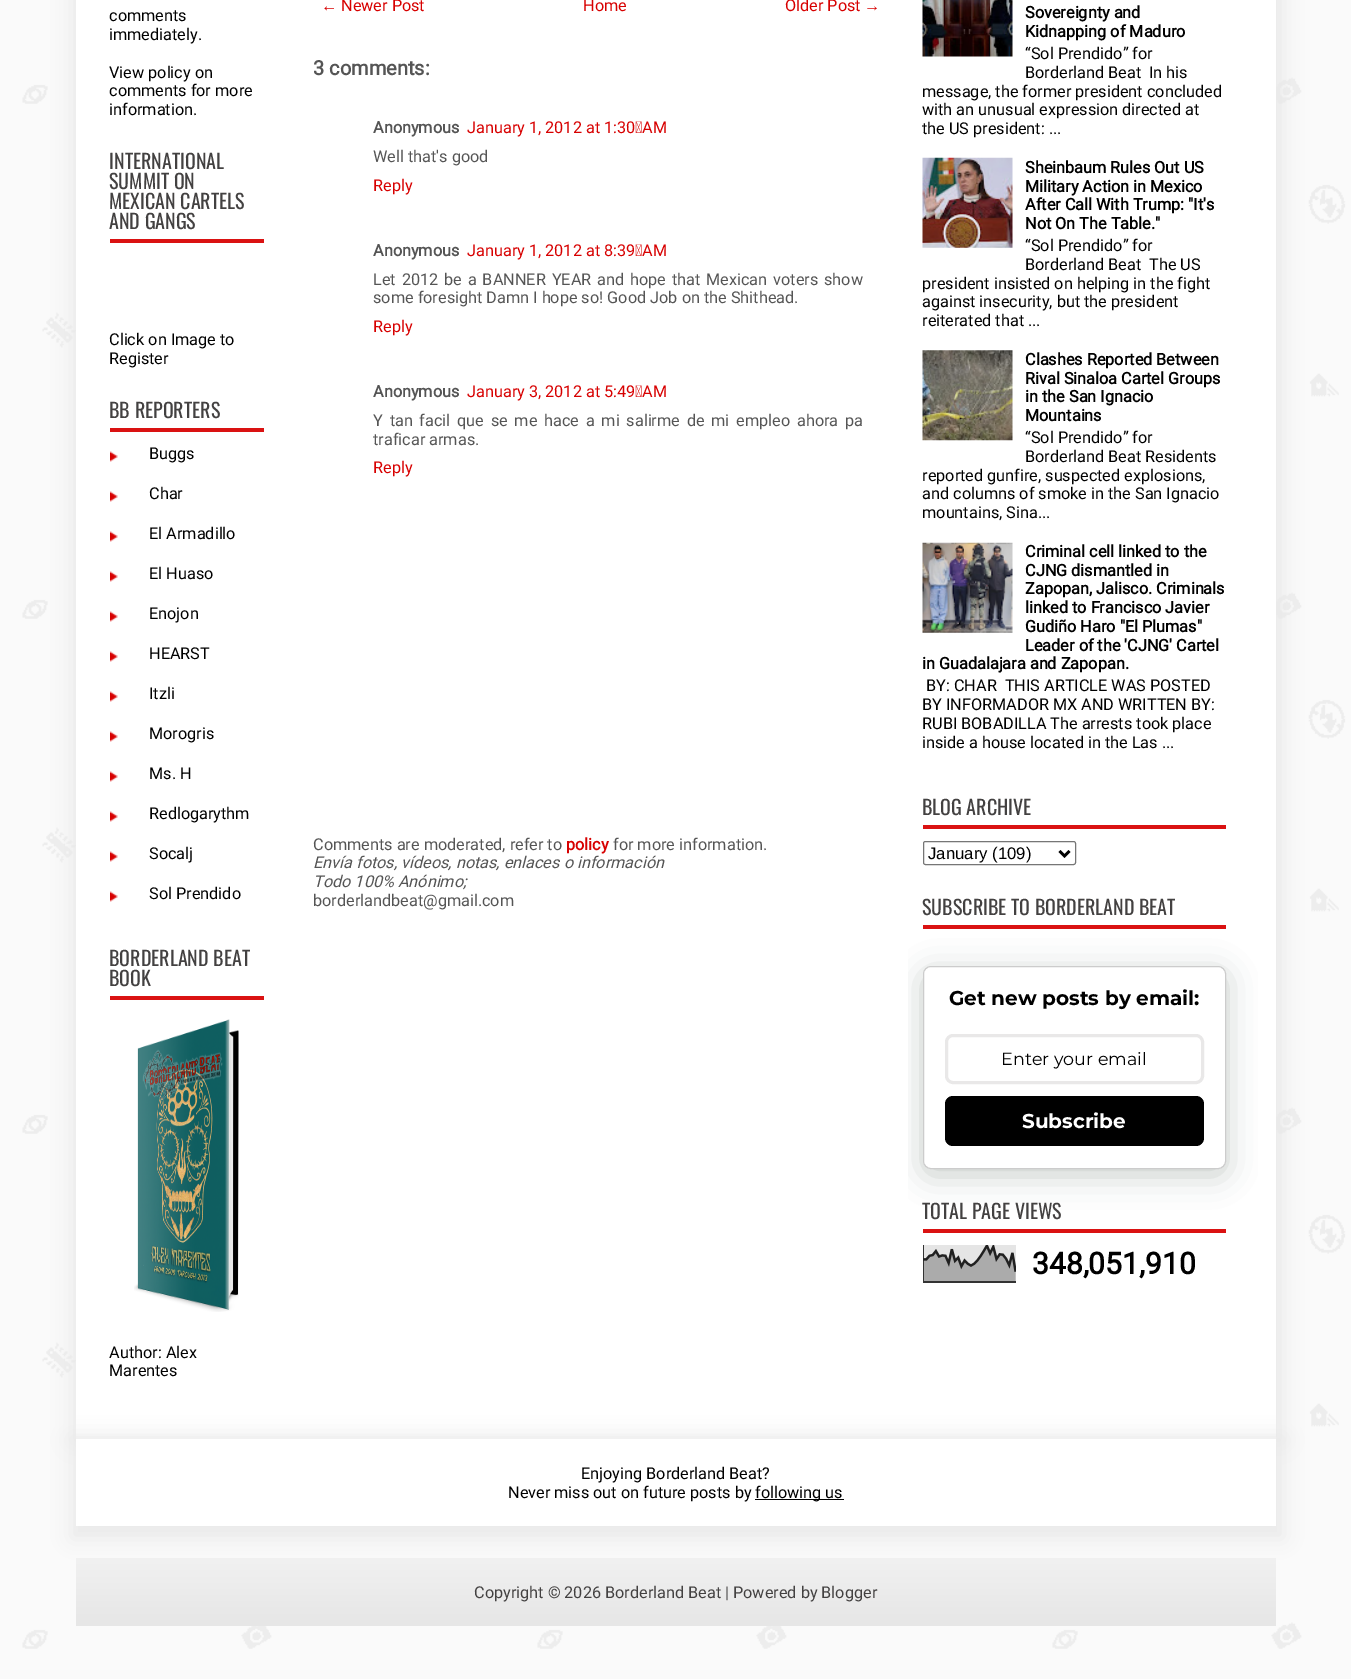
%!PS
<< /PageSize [1351 1679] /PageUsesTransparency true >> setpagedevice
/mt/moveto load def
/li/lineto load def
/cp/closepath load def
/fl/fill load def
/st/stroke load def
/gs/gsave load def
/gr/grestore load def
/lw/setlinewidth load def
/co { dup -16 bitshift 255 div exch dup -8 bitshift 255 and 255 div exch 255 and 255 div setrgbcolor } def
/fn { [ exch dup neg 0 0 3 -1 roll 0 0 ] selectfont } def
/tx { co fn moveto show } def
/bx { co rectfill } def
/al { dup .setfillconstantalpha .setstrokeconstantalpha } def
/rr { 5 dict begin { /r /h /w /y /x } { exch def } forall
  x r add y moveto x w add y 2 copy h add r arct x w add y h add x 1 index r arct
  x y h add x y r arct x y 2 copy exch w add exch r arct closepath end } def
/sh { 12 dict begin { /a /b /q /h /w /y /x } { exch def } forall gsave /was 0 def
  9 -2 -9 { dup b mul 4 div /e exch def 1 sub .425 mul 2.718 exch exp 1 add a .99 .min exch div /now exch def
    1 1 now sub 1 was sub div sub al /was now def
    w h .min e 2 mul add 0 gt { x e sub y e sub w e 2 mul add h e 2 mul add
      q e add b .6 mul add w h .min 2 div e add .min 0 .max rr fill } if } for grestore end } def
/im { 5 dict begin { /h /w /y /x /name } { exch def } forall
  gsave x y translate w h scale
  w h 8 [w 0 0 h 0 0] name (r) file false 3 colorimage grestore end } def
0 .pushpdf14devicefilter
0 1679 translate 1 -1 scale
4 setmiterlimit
0 0 1351 1679 16#FFFFFF bx
(media/1.raw) 0 0 1351 1679 im
16#E9E9E9 co
71 -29 1213 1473 0 9.5 1 sh
76 0 1200 1436 16#FFFFFF bx
110 239 154 4 16#DA1212 bx
110 428 154 4 16#DA1212 bx
(media/2.raw) 110 451 8 11 im
(media/2.raw) 110 491 8 11 im
(media/2.raw) 110 531 8 11 im
(media/2.raw) 110 571 8 11 im
(media/2.raw) 110 611 8 11 im
(media/2.raw) 110 651 8 11 im
(media/2.raw) 110 691 8 11 im
(media/2.raw) 110 731 8 11 im
(media/2.raw) 110 771 8 11 im
(media/2.raw) 110 811 8 11 im
(media/2.raw) 110 851 8 11 im
(media/2.raw) 110 891 8 11 im
110 996 154 4 16#DA1212 bx
(media/3.raw) 134 1019 105 293 im
(media/4.raw) 922 0 91 57 im
(media/5.raw) 922 157 91 91 im
(media/6.raw) 922 350 91 91 im
(media/7.raw) 922 542 91 91 im
923 825 303 4 16#DA1212 bx
16#767676 co
923.5 841.5 152 23 2 rr st
16#000000 co
2.5 lw
1059.5 851 mt 1064.5 856 li 1069.5 851 li st
923 925 303 4 16#DA1212 bx
gs
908 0 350 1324 rectclip
16#223C2F co
923 973 303 202 8 15.5 .25 sh
gr
16#FFFFFF co
923.5 966.5 302 202 7.5 rr gs fl gr
16#CCCCCC co
1 lw
st
16#E9E8E8 co
3 lw
946.5 1035.5 256 47 6.5 rr st
16#000000 co
945 1096 259 50 8 rr fl
923 1229 303 4 16#DA1212 bx
(media/8.raw) 923 1245 93 38 im
16#E9E9E9 co
71 1436 1213 103 0 9.5 1 sh
76 1439 1200 87 16#FFFFFF bx
76 1436 1200 3 16#F1F1F1 bx
755 1499 89 1 16#000000 bx
gs 76 1558 mt 1276 1558 li 1276 1626 li 76 1626 li cp clip newpath
<< /ShadingType 2 /ColorSpace /DeviceRGB /Coords [676 1558 676 1626] /Extend [true true] /Function << /FunctionType 2 /Domain [0 1] /C0 [.945 .945 .945] /C1 [.902 .902 .902] /N 1 >> >> shfill gr
(comments) 109 21 /Roboto-Regular 16.25 16#000000 tx
(immediately.) 109 40 /Roboto-Regular 16.25 16#000000 tx
(View policy on) 109 78 /Roboto-Regular 16.25 16#000000 tx
(comments for more) 109 96 /Roboto-Regular 16.25 16#000000 tx
(information.) 109 115 /Roboto-Regular 16.25 16#000000 tx
(INTERNATIONAL) 109 169 /Oswald-Regular 20 16#434141 tx
(SUMMIT ON) 109 189 /Oswald-Regular 20 16#434141 tx
(MEXICAN CARTELS) 109 209 /Oswald-Regular 20 16#434141 tx
(AND GANGS) 109 229 /Oswald-Regular 20 16#434141 tx
(Click on Image to) 109 345 /Roboto-Regular 16.25 16#000000 tx
(Register) 109 364 /Roboto-Regular 16.25 16#000000 tx
(BB REPORTERS) 109 418 /Oswald-Regular 20 16#434141 tx
(Buggs) 149 459 /Roboto-Regular 16.25 16#000000 tx
(Char) 149 499 /Roboto-Regular 16.25 16#000000 tx
(El Armadillo) 149 539 /Roboto-Regular 16.25 16#000000 tx
(El Huaso) 149 579 /Roboto-Regular 16.25 16#000000 tx
(Enojon) 149 619 /Roboto-Regular 16.25 16#000000 tx
(HEARST) 149 659 /Roboto-Regular 16.25 16#000000 tx
(Itzli) 149 699 /Roboto-Regular 16.25 16#000000 tx
(Morogris) 149 739 /Roboto-Regular 16.25 16#000000 tx
(Ms. H) 149 779 /Roboto-Regular 16.25 16#000000 tx
(Redlogarythm) 149 819 /Roboto-Regular 16.25 16#000000 tx
(Socalj) 149 859 /Roboto-Regular 16.25 16#000000 tx
(Sol Prendido) 149 899 /Roboto-Regular 16.25 16#000000 tx
(BORDERLAND BEAT) 109 966 /Oswald-Regular 20 16#434141 tx
(BOOK) 109 986 /Oswald-Regular 20 16#434141 tx
(Author: Alex) 109 1358 /Roboto-Regular 16.25 16#000000 tx
(Marentes) 109 1376 /Roboto-Regular 16.25 16#000000 tx
(←) 321 11 /LiberationSans-Regular 16.25 16#D70000 tx
(Newer Post) 341 11 /Roboto-Regular 16.25 16#D70000 tx
(Home) 583 11 /Roboto-Regular 16.25 16#D70000 tx
(Older Post) 785 11 /Roboto-Regular 16.25 16#D70000 tx
(→) 864 11 /LiberationSans-Regular 16.25 16#D70000 tx
(3 comments:) 313 75 /Roboto-Bold 20 16#555555 tx
(Anonymous) 373 133 /Roboto-Bold 16.25 16#555555 tx
(January 1, 2012 at 1:30 AM) 467 133 /Roboto-Regular 16.25 16#D70000 tx
(Well that's good) 373 162 /Roboto-Regular 16.25 16#555555 tx
(Reply) 373 191 /Roboto-Regular 16.25 16#D70000 tx
(Anonymous) 373 256 /Roboto-Bold 16.25 16#555555 tx
(January 1, 2012 at 8:39 AM) 467 256 /Roboto-Regular 16.25 16#D70000 tx
16#555555 co
373 285 mt 1.9 0 32 (Let 2012 be a BANNER YEAR and hope that Mexican voters show) widthshow
(some foresight Damn I hope so! Good Job on the Shithead.) 373 303 /Roboto-Regular 16.25 16#555555 tx
(Reply) 373 332 /Roboto-Regular 16.25 16#D70000 tx
(Anonymous) 373 397 /Roboto-Bold 16.25 16#555555 tx
(January 3, 2012 at 5:49 AM) 467 397 /Roboto-Regular 16.25 16#D70000 tx
16#555555 co
373 426 mt 2.75 0 32 (Y tan facil que se me hace a mi salirme de mi empleo ahora pa) widthshow
(traficar armas.) 373 445 /Roboto-Regular 16.25 16#555555 tx
(Reply) 373 473 /Roboto-Regular 16.25 16#D70000 tx
(Comments are moderated, refer to) 313 850 /Roboto-Regular 16.25 16#555555 tx
(policy) 566 850 /Roboto-Bold 16.25 16#D70000 tx
(for more information.) 613 850 /Roboto-Regular 16.25 16#555555 tx
(Envía fotos, vídeos, notas, enlaces o información) 313 868 /Roboto-Italic 16.25 16#555555 tx
(Todo 100% Anónimo;) 313 887 /Roboto-Italic 16.25 16#555555 tx
(borderlandbeat@gmail.com) 313 906 /Roboto-Regular 16.25 16#555555 tx
(Sovereignty and) 1025 18 /Roboto-Bold 16.25 16#000000 tx
(Kidnapping of Maduro) 1025 37 /Roboto-Bold 16.25 16#000000 tx
(“Sol Prendido” for) 1025 59 /Roboto-Regular 16.25 16#000000 tx
(Borderland Beat  In his) 1025 78 /Roboto-Regular 16.25 16#000000 tx
(message, the former president concluded) 922 97 /Roboto-Regular 16.25 16#000000 tx
(with an unusual expression directed at) 922 115 /Roboto-Regular 16.25 16#000000 tx
(the US president: ...) 922 134 /Roboto-Regular 16.25 16#000000 tx
(Sheinbaum Rules Out US) 1025 173 /Roboto-Bold 16.25 16#000000 tx
(Military Action in Mexico) 1025 192 /Roboto-Bold 16.25 16#000000 tx
(After Call With Trump: "It's) 1025 210 /Roboto-Bold 16.25 16#000000 tx
(Not On The Table.") 1025 229 /Roboto-Bold 16.25 16#000000 tx
(“Sol Prendido” for) 1025 251 /Roboto-Regular 16.25 16#000000 tx
(Borderland Beat  The US) 1025 270 /Roboto-Regular 16.25 16#000000 tx
(president insisted on helping in the fight) 922 289 /Roboto-Regular 16.25 16#000000 tx
(against insecurity, but the president) 922 307 /Roboto-Regular 16.25 16#000000 tx
(reiterated that ...) 922 326 /Roboto-Regular 16.25 16#000000 tx
(Clashes Reported Between) 1025 365 /Roboto-Bold 16.25 16#000000 tx
(Rival Sinaloa Cartel Groups) 1025 384 /Roboto-Bold 16.25 16#000000 tx
(in the San Ignacio) 1025 402 /Roboto-Bold 16.25 16#000000 tx
(Mountains) 1025 421 /Roboto-Bold 16.25 16#000000 tx
(“Sol Prendido” for) 1025 443 /Roboto-Regular 16.25 16#000000 tx
(Borderland Beat Residents) 1025 462 /Roboto-Regular 16.25 16#000000 tx
(reported gunfire, suspected explosions,) 922 481 /Roboto-Regular 16.25 16#000000 tx
(and columns of smoke in the San Ignacio) 922 499 /Roboto-Regular 16.25 16#000000 tx
(mountains, Sina...) 922 518 /Roboto-Regular 16.25 16#000000 tx
(Criminal cell linked to the) 1025 557 /Roboto-Bold 16.25 16#000000 tx
(CJNG dismantled in) 1025 576 /Roboto-Bold 16.25 16#000000 tx
(Zapopan, Jalisco. Criminals) 1025 594 /Roboto-Bold 16.25 16#000000 tx
(linked to Francisco Javier) 1025 613 /Roboto-Bold 16.25 16#000000 tx
(Gudiño Haro "El Plumas") 1025 632 /Roboto-Bold 16.25 16#000000 tx
(Leader of the 'CJNG' Cartel) 1025 651 /Roboto-Bold 16.25 16#000000 tx
(in Guadalajara and Zapopan.) 922 669 /Roboto-Bold 16.25 16#000000 tx
(BY: CHAR  THIS ARTICLE WAS POSTED) 926 691 /Roboto-Regular 16.25 16#000000 tx
(BY INFORMADOR MX AND WRITTEN BY:) 922 710 /Roboto-Regular 16.25 16#000000 tx
(RUBI BOBADILLA The arrests took place) 922 729 /Roboto-Regular 16.25 16#000000 tx
(inside a house located in the Las ...) 922 748 /Roboto-Regular 16.25 16#000000 tx
(BLOG ARCHIVE) 922 815 /Oswald-Regular 20 16#434141 tx
(January \(109\)) 928 859 /LiberationSans-Regular 16.75 16#000000 tx
(SUBSCRIBE TO BORDERLAND BEAT) 922 915 /Oswald-Regular 20 16#434141 tx
(Get new posts by email:) 949 1005 /Montserrat-Thin 20 16#000000 tx
(Enter your email) 1001 1065 /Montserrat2-Thin 17.5 16#000000 tx
(Subscribe) 1022 1128 /Montserrat-Thin 20 16#FFFFFF tx
(TOTAL PAGE VIEWS) 922 1219 /Oswald-Regular 20 16#434141 tx
(348,051,910) 1032 1274 /Roboto-Bold 30 16#000000 tx
(Enjoying Borderland Beat?) 581 1479 /Roboto-Regular 16.25 16#000000 tx
(Never miss out on future posts by) 508 1498 /Roboto-Regular 16.25 16#000000 tx
(following us) 755 1498 /Roboto-Regular 16.25 16#000000 tx
(Copyright © 2026 Borderland Beat | Powered by Blogger) 474 1598 /Roboto-Regular 16.25 16#434141 tx
.poppdf14devicefilter showpage
